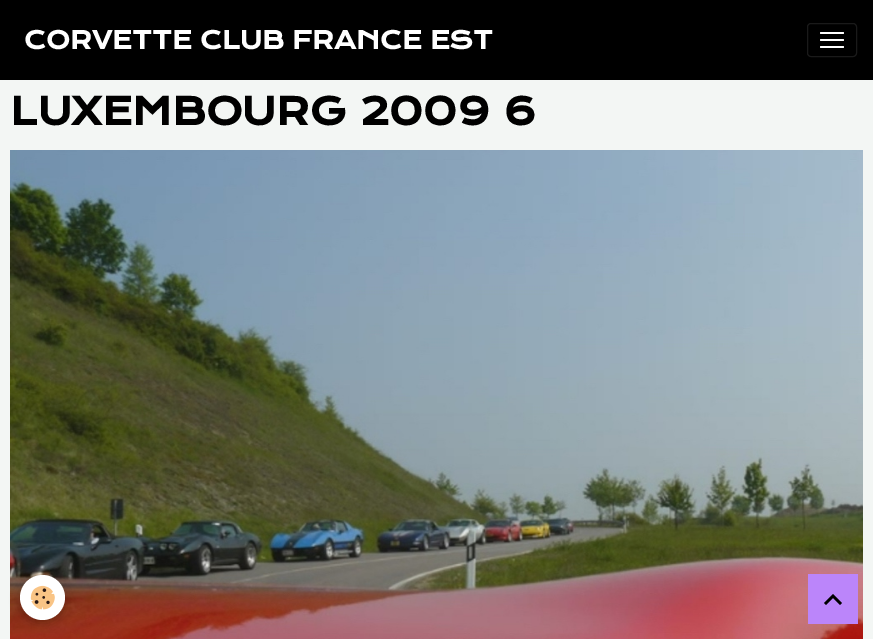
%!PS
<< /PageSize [873 639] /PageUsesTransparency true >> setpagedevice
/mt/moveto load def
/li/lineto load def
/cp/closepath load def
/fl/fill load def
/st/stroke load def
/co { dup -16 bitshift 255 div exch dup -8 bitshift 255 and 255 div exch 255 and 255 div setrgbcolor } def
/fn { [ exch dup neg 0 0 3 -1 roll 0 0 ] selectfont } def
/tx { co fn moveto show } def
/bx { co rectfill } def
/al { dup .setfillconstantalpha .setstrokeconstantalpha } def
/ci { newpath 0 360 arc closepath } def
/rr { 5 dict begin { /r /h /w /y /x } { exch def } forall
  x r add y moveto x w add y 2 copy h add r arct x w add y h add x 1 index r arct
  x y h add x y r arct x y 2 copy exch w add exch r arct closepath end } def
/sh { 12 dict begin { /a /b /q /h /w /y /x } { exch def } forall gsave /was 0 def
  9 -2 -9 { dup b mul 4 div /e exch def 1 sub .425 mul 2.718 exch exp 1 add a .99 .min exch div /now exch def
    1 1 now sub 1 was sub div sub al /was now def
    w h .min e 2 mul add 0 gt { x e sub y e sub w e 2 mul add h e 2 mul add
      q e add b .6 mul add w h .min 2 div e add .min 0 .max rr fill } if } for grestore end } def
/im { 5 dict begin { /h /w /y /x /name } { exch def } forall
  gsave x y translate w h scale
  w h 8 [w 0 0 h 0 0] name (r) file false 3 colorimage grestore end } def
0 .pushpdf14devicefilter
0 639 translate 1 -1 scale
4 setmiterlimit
0 0 873 639 16#F3F6F4 bx
0 0 873 80 16#000000 bx
16#1A1A1A co
807.5 23.5 49 33 3.5 rr st
16#FFFFFF co
820 32 24 2 1 rr fl
820 39 24 2 1 rr fl
820 46 24 2 1 rr fl
(media/1.raw) 10 150 853 489 im
16#000000 co
20 578 45 45 22.5 5 .24 sh
16#FFFFFF co
42.5 597.5 22.5 ci fl
(media/2.raw) 30 585 25 25 im
808 574 50 50 16#BB85FA bx
16#000000 co
833 594 mt 842 603 li 840 605 li 833 598 li 826 605 li 824 603 li cp fl
(CORVETTE CLUB FRANCE EST) 24 49 /KronaOne-Bold 24 16#FFFFFF tx
(LUXEMBOURG 2009 6) 10 125 /KronaOne-Bold 36.75 16#000000 tx
.poppdf14devicefilter showpage
